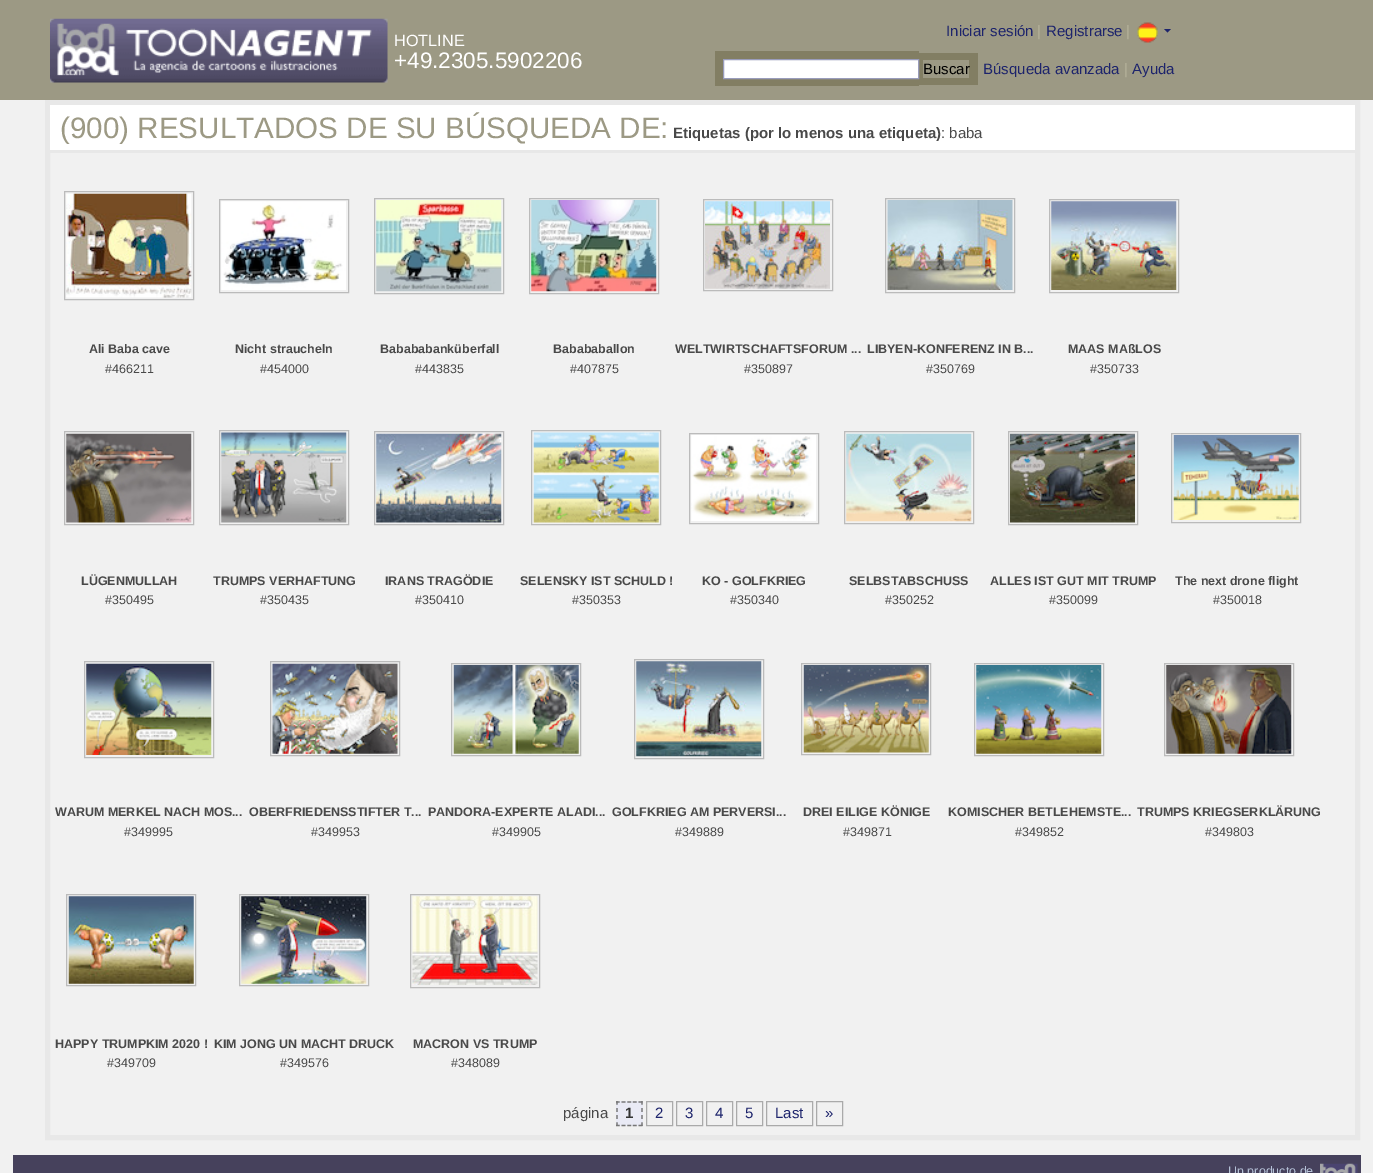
%!PS
<< /PageSize [1373 1173] >> setpagedevice
/mt/moveto load def
/li/lineto load def
/cp/closepath load def
/fl/fill load def
/st/stroke load def
/gs/gsave load def
/gr/grestore load def
/lw/setlinewidth load def
/co { dup -16 bitshift 255 div exch dup -8 bitshift 255 and 255 div exch 255 and 255 div setrgbcolor } def
/fn { [ exch dup neg 0 0 3 -1 roll 0 0 ] selectfont } def
/tx { co fn moveto show } def
/bx { co rectfill } def
/im { 5 dict begin { /h /w /y /x /name } { exch def } forall
  gsave x y translate w h scale
  w h 8 [w 0 0 h 0 0] name (r) file false 3 colorimage grestore end } def
0 1173 translate 1 -1 scale
4 setmiterlimit
0 0 1373 1173 16#F1F1F1 bx
0 0 1373 100 16#9C9984 bx
(media/1.raw) 1137 22 21 21 im
16#1D246C co
1164 29 mt 1171 29 li 1167.5 32.5 li cp fl
(media/2.raw) 50 18 338 65 im
715 51 204 35 16#827E63 bx
919 53 59 32 16#827E63 bx
16#FFFFFF co
723.5 59.5 mt 918.5 59.5 li 918.5 78.5 li 723.5 78.5 li cp gs fl gr
16#999CBB co
st
923 60 46 18 16#9C9984 bx
16#E8E8E8 co
5 lw
47.5 102.5 1310 1035 rectstroke
50 105 1305 45 16#FFFFFF bx
50 150 1305 3 16#E8E8E8 bx
16#BBBBBB co
1 lw
64.5 191.5 129 108 rectstroke
(media/3.raw) 66 193 126 105 im
219.5 199.5 129 93 rectstroke
(media/4.raw) 221 201 125 89 im
374.5 198.5 129 95 rectstroke
(media/5.raw) 376 200 126 92 im
529.5 198.5 129 95 rectstroke
(media/6.raw) 531 200 126 92 im
703.5 199.5 129 91 rectstroke
(media/7.raw) 705 201 125 88 im
885.5 198.5 129 94 rectstroke
(media/8.raw) 887 200 126 90 im
1049.5 199.5 129 93 rectstroke
(media/9.raw) 1051 201 126 89 im
64.5 431.5 129 93 rectstroke
(media/10.raw) 66 433 126 90 im
219.5 430.5 129 94 rectstroke
(media/11.raw) 221 432 126 91 im
374.5 431.5 129 93 rectstroke
(media/12.raw) 376 433 126 90 im
531.5 430.5 129 94 rectstroke
(media/13.raw) 533 432 126 91 im
689.5 433.5 129 90 rectstroke
(media/14.raw) 691 435 125 86 im
844.5 431.5 129 92 rectstroke
(media/15.raw) 846 433 126 89 im
1008.5 431.5 129 93 rectstroke
(media/16.raw) 1010 433 125 90 im
1171.5 433.5 129 89 rectstroke
(media/17.raw) 1173 435 126 85 im
84.5 661.5 129 96 rectstroke
(media/18.raw) 86 663 126 92 im
270.5 661.5 129 94 rectstroke
(media/19.raw) 272 663 126 91 im
451.5 663.5 129 92 rectstroke
(media/20.raw) 453 665 126 89 im
634.5 659.5 129 99 rectstroke
(media/21.raw) 636 661 126 96 im
801.5 663.5 129 91 rectstroke
(media/22.raw) 803 665 126 88 im
974.5 663.5 129 92 rectstroke
(media/23.raw) 976 665 126 89 im
1164.5 663.5 129 92 rectstroke
(media/24.raw) 1166 665 126 89 im
66.5 894.5 129 91 rectstroke
(media/25.raw) 68 896 126 88 im
239.5 894.5 129 91 rectstroke
(media/26.raw) 241 896 126 88 im
410.5 894.5 129 93 rectstroke
(media/27.raw) 412 896 126 89 im
616 1101 27 25 16#E9EAF5 bx
16#777777 co
1.2 lw
[3.75 1.88] 0 setdash
616 1102 mt 642.5 1102 li st
[3.75 3.34] 0 setdash
642 1101 mt 642 1126 li st
[3.75 1.88] 0 setdash
616 1125.5 mt 642.5 1125.5 li st
[3.75 3.34] 0 setdash
617 1101 mt 617 1126 li st
16#AAAAAA co
1 lw
[] 0 setdash
646.5 1101.5 26 24 rectstroke
676.5 1101.5 26 24 rectstroke
706.5 1101.5 26 24 rectstroke
736.5 1101.5 26 24 rectstroke
766.5 1101.5 46 24 rectstroke
816.5 1101.5 26 24 rectstroke
13 1155 1348 18 16#46415C bx
(media/28.raw) 1320 1163 38 10 im
(Iniciar sesión) 946 36 /LiberationSans-Regular 15 16#1D246C tx
(|) 1037 36 /LiberationSans-Regular 15 16#B5B29B tx
(Registrarse) 1046 36 /LiberationSans-Regular 15 16#1D246C tx
(|) 1126 36 /LiberationSans-Regular 15 16#B5B29B tx
(HOTLINE) 394 46 /LiberationSans-Regular 16.25 16#FFFFFF tx
(+49.2305.5902206) 394 68 /LiberationSans-Regular 22.5 16#FFFFFF tx
(Buscar) 923 74 /LiberationSans-Regular 15 16#000000 tx
(Búsqueda avanzada) 983 74 /LiberationSans-Regular 15 16#1D246C tx
(|) 1124 74 /LiberationSans-Regular 15 16#B5B29B tx
(Ayuda) 1132 74 /LiberationSans-Regular 15 16#1D246C tx
(\(900\) RESULTADOS DE SU BÚSQUEDA DE:) 60 138 /LiberationSans-Regular 29.6 16#9C9984 tx
(Etiquetas \(por lo menos una etiqueta\)) 673 138 /LiberationSans-Bold 15 16#494949 tx
(: baba) 941 138 /LiberationSans-Regular 15 16#494949 tx
(Ali Baba cave) 89 353 /LiberationSans-Bold 12.5 16#494949 tx
(#466211) 105 373 /LiberationSans-Regular 12.5 16#494949 tx
(Nicht straucheln) 235 353 /LiberationSans-Bold 12.5 16#494949 tx
(#454000) 260 373 /LiberationSans-Regular 12.5 16#494949 tx
(Babababanküberfall) 380 353 /LiberationSans-Bold 12.5 16#494949 tx
(#443835) 415 373 /LiberationSans-Regular 12.5 16#494949 tx
(Babababallon) 553 353 /LiberationSans-Bold 12.5 16#494949 tx
(#407875) 570 373 /LiberationSans-Regular 12.5 16#494949 tx
(WELTWIRTSCHAFTSFORUM ...) 675 353 /LiberationSans-Bold 12.5 16#494949 tx
(#350897) 744 373 /LiberationSans-Regular 12.5 16#494949 tx
(LIBYEN-KONFERENZ IN B...) 867 353 /LiberationSans-Bold 12.5 16#494949 tx
(#350769) 926 373 /LiberationSans-Regular 12.5 16#494949 tx
(MAAS MAßLOS) 1068 353 /LiberationSans-Bold 12.5 16#494949 tx
(#350733) 1090 373 /LiberationSans-Regular 12.5 16#494949 tx
(LÜGENMULLAH) 81 585 /LiberationSans-Bold 12.5 16#494949 tx
(#350495) 105 604 /LiberationSans-Regular 12.5 16#494949 tx
(TRUMPS VERHAFTUNG) 213 585 /LiberationSans-Bold 12.5 16#494949 tx
(#350435) 260 604 /LiberationSans-Regular 12.5 16#494949 tx
(IRANS TRAGÖDIE) 385 585 /LiberationSans-Bold 12.5 16#494949 tx
(#350410) 415 604 /LiberationSans-Regular 12.5 16#494949 tx
(SELENSKY IST SCHULD !) 520 585 /LiberationSans-Bold 12.5 16#494949 tx
(#350353) 572 604 /LiberationSans-Regular 12.5 16#494949 tx
(KO - GOLFKRIEG) 702 585 /LiberationSans-Bold 12.5 16#494949 tx
(#350340) 730 604 /LiberationSans-Regular 12.5 16#494949 tx
(SELBSTABSCHUSS) 849 585 /LiberationSans-Bold 12.5 16#494949 tx
(#350252) 885 604 /LiberationSans-Regular 12.5 16#494949 tx
(ALLES IST GUT MIT TRUMP) 990 585 /LiberationSans-Bold 12.5 16#494949 tx
(#350099) 1049 604 /LiberationSans-Regular 12.5 16#494949 tx
(The next drone flight) 1175 585 /LiberationSans-Bold 12.5 16#494949 tx
(#350018) 1213 604 /LiberationSans-Regular 12.5 16#494949 tx
(WARUM MERKEL NACH MOS...) 55 816 /LiberationSans-Bold 12.5 16#494949 tx
(#349995) 124 836 /LiberationSans-Regular 12.5 16#494949 tx
(OBERFRIEDENSSTIFTER T...) 249 816 /LiberationSans-Bold 12.5 16#494949 tx
(#349953) 311 836 /LiberationSans-Regular 12.5 16#494949 tx
(PANDORA-EXPERTE ALADI...) 428 816 /LiberationSans-Bold 12.5 16#494949 tx
(#349905) 492 836 /LiberationSans-Regular 12.5 16#494949 tx
(GOLFKRIEG AM PERVERSI...) 612 816 /LiberationSans-Bold 12.5 16#494949 tx
(#349889) 675 836 /LiberationSans-Regular 12.5 16#494949 tx
(DREI EILIGE KÖNIGE) 803 816 /LiberationSans-Bold 12.5 16#494949 tx
(#349871) 843 836 /LiberationSans-Regular 12.5 16#494949 tx
(KOMISCHER BETLEHEMSTE...) 948 816 /LiberationSans-Bold 12.5 16#494949 tx
(#349852) 1015 836 /LiberationSans-Regular 12.5 16#494949 tx
(TRUMPS KRIEGSERKLÄRUNG) 1137 816 /LiberationSans-Bold 12.5 16#494949 tx
(#349803) 1205 836 /LiberationSans-Regular 12.5 16#494949 tx
(HAPPY TRUMPKIM 2020 !) 55 1048 /LiberationSans-Bold 12.5 16#494949 tx
(#349709) 107 1067 /LiberationSans-Regular 12.5 16#494949 tx
(KIM JONG UN MACHT DRUCK) 214 1048 /LiberationSans-Bold 12.5 16#494949 tx
(#349576) 280 1067 /LiberationSans-Regular 12.5 16#494949 tx
(MACRON VS TRUMP) 413 1048 /LiberationSans-Bold 12.5 16#494949 tx
(#348089) 451 1067 /LiberationSans-Regular 12.5 16#494949 tx
(página) 563 1118 /LiberationSans-Regular 15 16#494949 tx
(1) 625 1118 /LiberationSans-Bold 15 16#333333 tx
(2) 655 1118 /LiberationSans-Regular 15 16#1D246C tx
(3) 685 1118 /LiberationSans-Regular 15 16#1D246C tx
(4) 715 1118 /LiberationSans-Regular 15 16#1D246C tx
(5) 745 1118 /LiberationSans-Regular 15 16#1D246C tx
(Last) 775 1118 /LiberationSans-Regular 15 16#1D246C tx
(») 825 1118 /LiberationSans-Regular 15 16#1D246C tx
(Un producto de) 1228 1175 /LiberationSans-Regular 12.5 16#B6C2D8 tx
showpage
